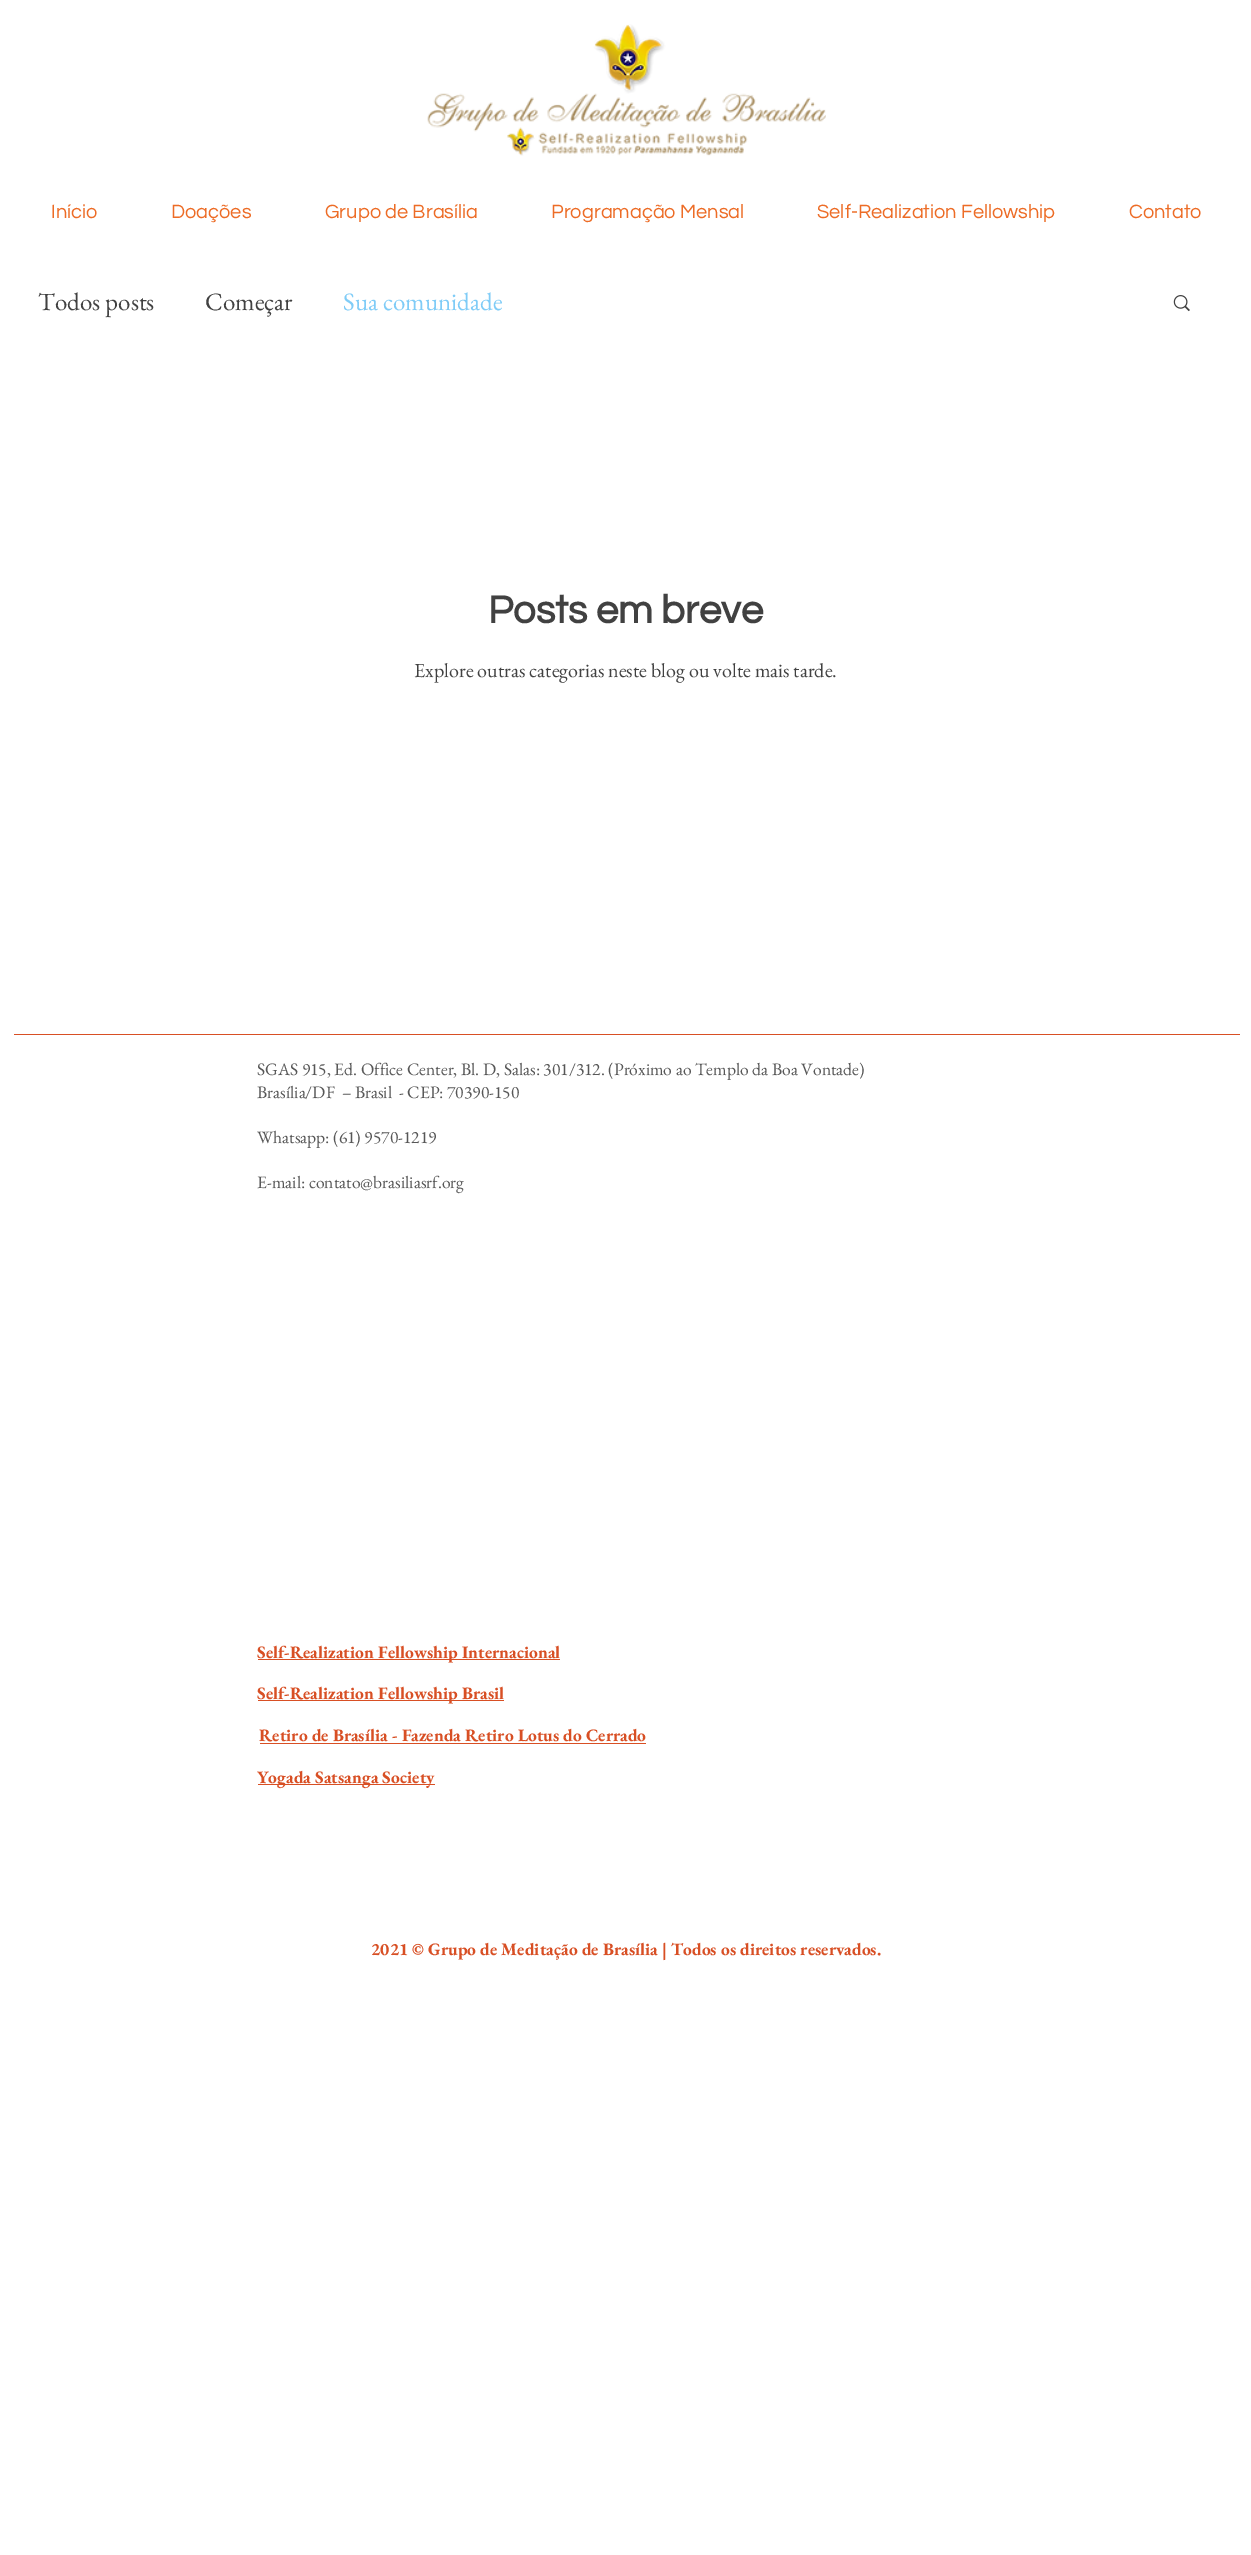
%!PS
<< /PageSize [1251 2555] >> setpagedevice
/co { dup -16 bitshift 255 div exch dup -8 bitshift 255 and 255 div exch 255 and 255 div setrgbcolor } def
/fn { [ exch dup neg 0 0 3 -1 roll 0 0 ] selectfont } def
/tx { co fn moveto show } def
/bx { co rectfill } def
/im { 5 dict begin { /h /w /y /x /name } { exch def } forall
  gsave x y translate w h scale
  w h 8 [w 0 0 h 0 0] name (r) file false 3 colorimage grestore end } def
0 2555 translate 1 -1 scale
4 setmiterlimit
0 0 1251 2555 16#FFFFFF bx
(media/1.raw) 427 24 399 132 im
(media/2.raw) 1173 295 17 17 im
14 1034 1226 1 16#D84F24 bx
258 1659 302 1 16#D84F24 bx
258 1700 246 1 16#D84F24 bx
260 1743 386 1 16#D84F24 bx
258 1784 177 1 16#D84F24 bx
(Início) 51 218 /Questrial-Regular 20 16#ED6C26 tx
(Doações) 171 218 /Questrial-Regular 20 16#ED6C26 tx
(Grupo de Brasília) 325 218 /Questrial-Regular 20 16#ED6C26 tx
(Programação Mensal) 551 218 /Questrial-Regular 20 16#ED6C26 tx
(Self-Realization Fellowship) 817 218 /Questrial-Regular 20 16#ED6C26 tx
(Contato) 1129 218 /Questrial-Regular 20 16#ED6C26 tx
(Todos posts) 38 310 /EBGaramond-Regular 25 16#414141 tx
(Começar) 205 310 /EBGaramond-Regular 25 16#414141 tx
(Sua comunidade) 343 310 /EBGaramond-Regular 25 16#7FCCF7 tx
(Posts em breve) 488 623 /Questrial-Bold 40 16#414141 tx
(Explore outras categorias neste blog ou volte mais tarde.) 414 677 /EBGaramond-Regular 20 16#414141 tx
(SGAS 915, Ed. Office Center, Bl. D, Salas: 301/312. \(Próximo ao Templo da Boa Vontade\)) 257 1075 /EBGaramond-Regular 17.5 16#575757 tx
(Brasília/DF  – Brasil  - CEP: 70390-150) 257 1098 /EBGaramond-Regular 17.5 16#575757 tx
(Whatsapp: \(61\) 9570-1219) 257 1143 /EBGaramond-Regular 17.5 16#575757 tx
(E-mail: contato@brasiliasrf.org) 257 1188 /EBGaramond-Regular 17.5 16#575757 tx
(Self-Realization Fellowship Internacional) 257 1658 /EBGaramond-Bold 17.5 16#D84F24 tx
(Self-Realization Fellowship Brasil) 257 1699 /EBGaramond-Bold 17.5 16#D84F24 tx
(Retiro de Brasília - Fazenda Retiro Lotus do Cerrado) 259 1741 /EBGaramond-Bold 17.5 16#D84F24 tx
(Yogada Satsanga Society) 257 1783 /EBGaramond-Bold 17.5 16#D84F24 tx
(2021 © Grupo de Meditação de Brasília | Todos os direitos reservados.) 371 1955 /EBGaramond-Bold 17.5 16#D84F24 tx
showpage
